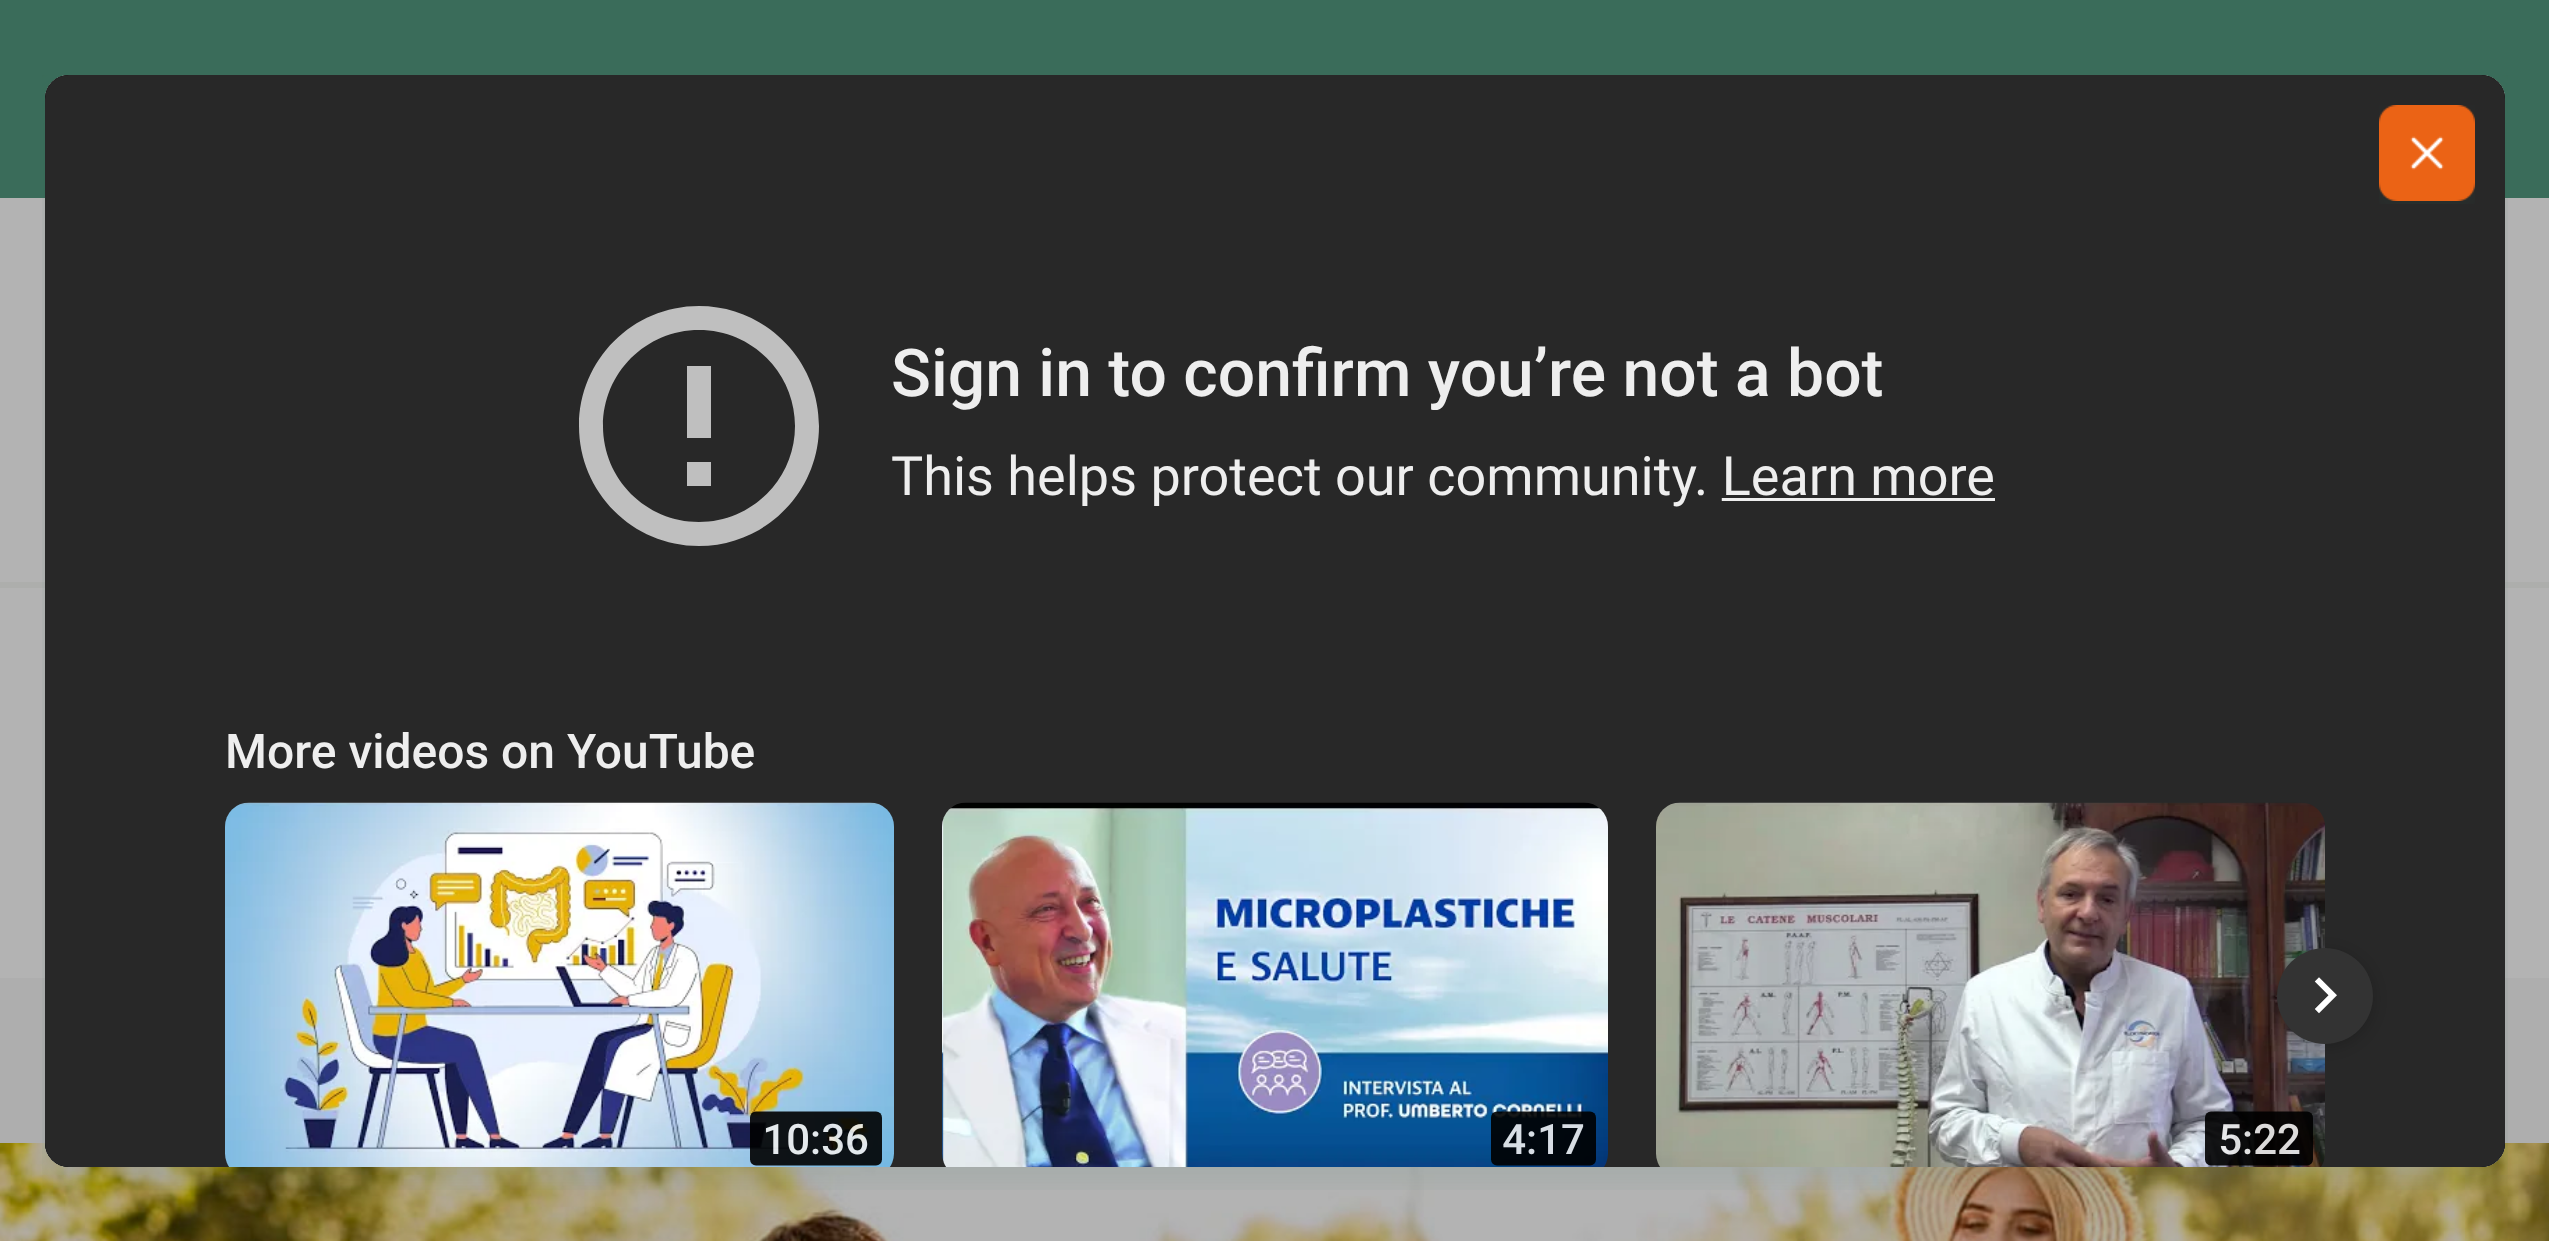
%!PS
<< /PageSize [2549 1241] >> setpagedevice
/co { dup -16 bitshift 255 div exch dup -8 bitshift 255 and 255 div exch 255 and 255 div setrgbcolor } def
/bx { co rectfill } def
/im { 5 dict begin { /h /w /y /x /name } { exch def } forall
  gsave x y translate w h scale
  w h 8 [w 0 0 h 0 0] name (r) file false 3 colorimage grestore end } def
0 1241 translate 1 -1 scale
4 setmiterlimit
0 0 2549 1241 16#B3B3B3 bx
0 582 2549 6 16#ADAEAC bx
0 0 2549 198 16#3A6C5A bx
0 978 2549 165 16#AEAEAE bx
(media/1.raw) 0 1143 2549 98 im
(media/2.raw) 42 75 2466 1115 im
(media/3.raw) 2379 105 96 99 im
showpage
